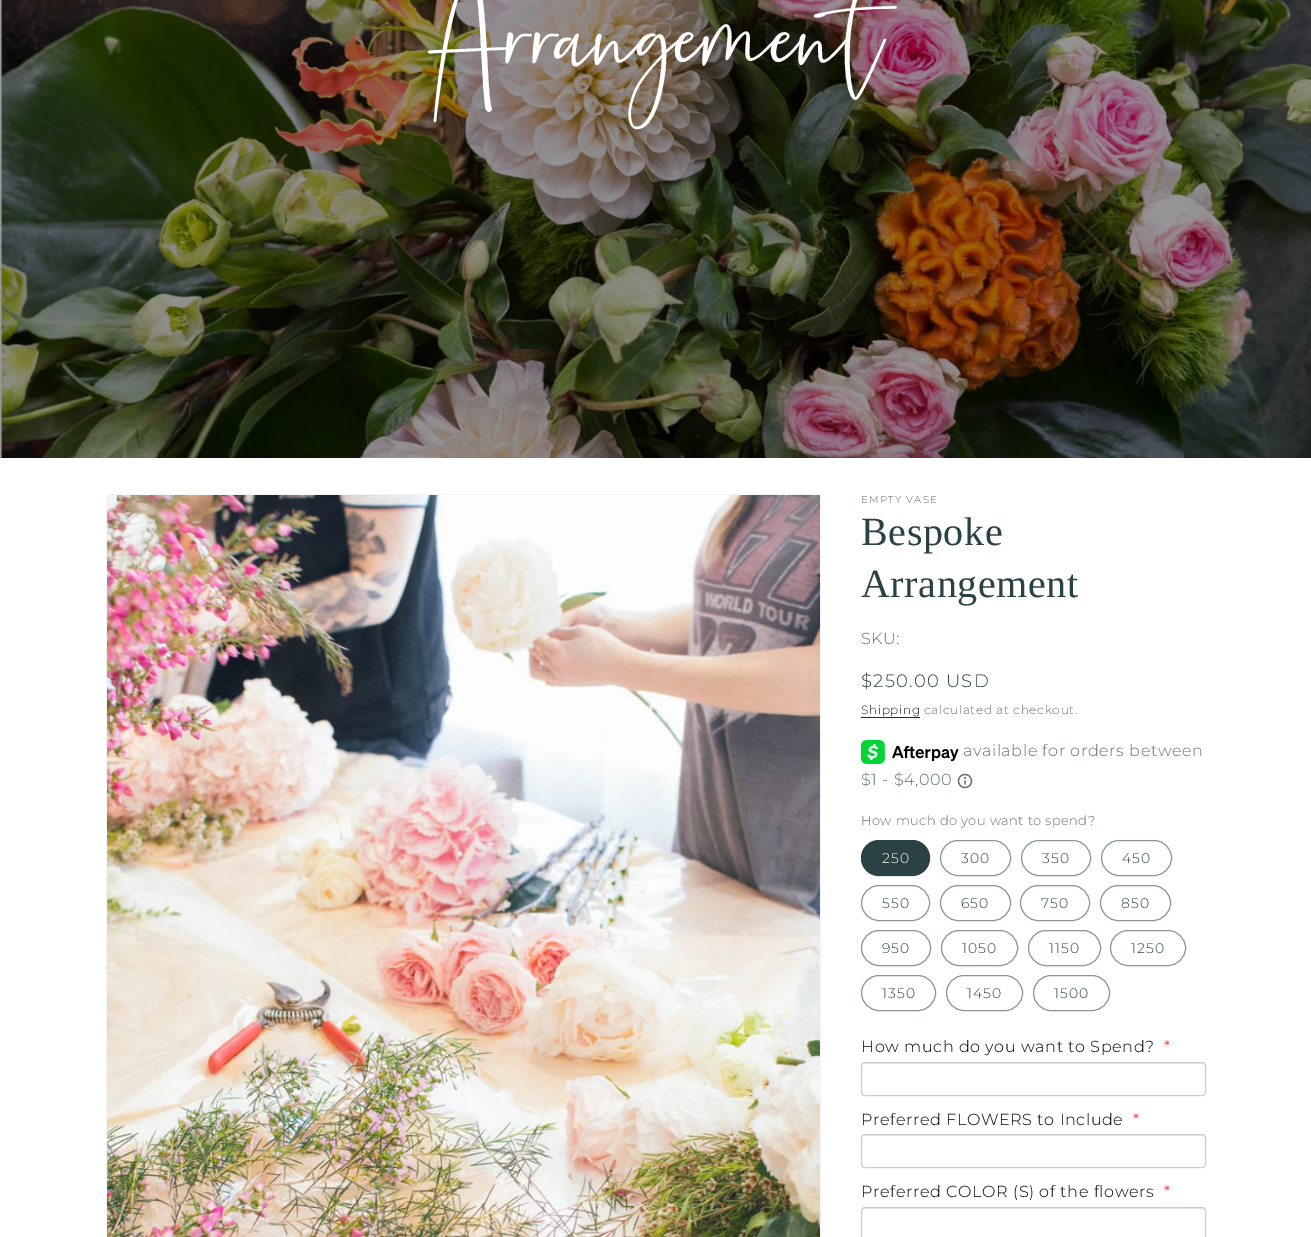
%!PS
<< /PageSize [1311 1237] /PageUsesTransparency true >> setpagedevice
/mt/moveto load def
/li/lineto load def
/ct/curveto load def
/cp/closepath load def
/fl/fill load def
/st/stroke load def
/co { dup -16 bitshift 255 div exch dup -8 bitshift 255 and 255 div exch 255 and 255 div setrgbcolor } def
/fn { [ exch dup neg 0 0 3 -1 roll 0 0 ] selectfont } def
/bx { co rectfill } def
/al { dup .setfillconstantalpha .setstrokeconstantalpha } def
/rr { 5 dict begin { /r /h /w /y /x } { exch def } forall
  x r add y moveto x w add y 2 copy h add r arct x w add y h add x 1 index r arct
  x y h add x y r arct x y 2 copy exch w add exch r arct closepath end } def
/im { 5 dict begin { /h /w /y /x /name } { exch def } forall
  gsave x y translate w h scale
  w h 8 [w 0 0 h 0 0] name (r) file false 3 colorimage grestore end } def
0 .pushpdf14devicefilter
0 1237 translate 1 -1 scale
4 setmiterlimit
0 0 1311 1237 16#FFFFFF bx
(media/1.raw) 0 0 1311 458 im
16#F4F6F6 co
106.5 494.5 714 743 rectstroke
(media/2.raw) 107 495 713 742 im
861 717 59 1 16#262626 bx
(media/3.raw) 861 740 98 24 im
(media/4.raw) 957 773 16 16 im
16#2B4244 co
861 840 69 36 18 rr fl
0.55 al
861.5 840.5 68 35 17.5 rr st
1 al
16#8A9798 co
940.5 840.5 70 35 17.5 rr st
1021.5 840.5 69 35 17.5 rr st
1101.5 840.5 70 35 17.5 rr st
861.5 885.5 68 35 17.5 rr st
940.5 885.5 70 35 17.5 rr st
1020.5 885.5 69 35 17.5 rr st
1100.5 885.5 70 35 17.5 rr st
861.5 930.5 69 35 17.5 rr st
941.5 930.5 76 35 17.5 rr st
1028.5 930.5 72 35 17.5 rr st
1110.5 930.5 75 35 17.5 rr st
861.5 975.5 74 35 17.5 rr st
946.5 975.5 76 35 17.5 rr st
1033.5 975.5 76 35 17.5 rr st
16#ECECEC co
865 1064 mt 1202 1064 li 1204 1064 1205 1065 1205 1067 ct 1205 1065 1204 1063 1202 1063 ct 865 1063 li 863 1063 862 1065 862 1067 ct 862 1065 863 1064 865 1064 ct cp fl
16#CCCCCC co
861.5 1062.5 344 33 3.5 rr st
16#ECECEC co
865 1136 mt 1202 1136 li 1204 1136 1205 1137 1205 1139 ct 1205 1137 1204 1135 1202 1135 ct 865 1135 li 863 1135 862 1137 862 1139 ct 862 1137 863 1136 865 1136 ct cp fl
16#CCCCCC co
861.5 1134.5 344 33 3.5 rr st
16#ECECEC co
865 1209 mt 1202 1209 li 1204 1209 1205 1210 1205 1212 ct 1205 1210 1204 1208 1202 1208 ct 865 1208 li 863 1208 862 1210 862 1212 ct 862 1210 863 1209 865 1209 ct cp fl
16#CCCCCC co
861.5 1207.5 344 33 3.5 rr st
/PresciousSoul-Regular 85 fn
16#FFFFFF co
428 62 mt .6 0 (Arrangement) ashow
/Montserrat-Light 10 fn
16#607173 co
861 503 mt 1.25 0 (EMPTY VASE) ashow
/LiberationSerif-Regular 40 fn
16#2B4244 co
861 545 mt .6 0 (Bespoke) ashow
861 597 mt .6 0 (Arrangement) ashow
/Montserrat-Light 16 fn
16#607173 co
861 644 mt .6 0 (SKU:) ashow
/Montserrat-Light 18 fn
16#2B4244 co
861 687 mt 1.25 0 ($250.00 USD) ashow
/Montserrat-Light 12 fn
16#262626 co
861 714 mt .7 0 (Shipping) ashow
16#607173 co
924 714 mt .7 0 (calculated at checkout.) ashow
/Montserrat-Light 16 fn
963 756 mt .6 0 (available for orders between) ashow
861 785 mt .6 0 ($1 - $4,000) ashow
/Montserrat-Light 13 fn
861 825 mt .4 0 (How much do you want to spend?) ashow
/Montserrat-Light 14 fn
16#FFFFFF co
882 863 mt 1 0 (250) ashow
16#2B4244 co
961 863 mt 1 0 (300) ashow
1042 863 mt 1 0 (350) ashow
1122 863 mt 1 0 (450) ashow
882 908 mt 1 0 (550) ashow
961 908 mt 1 0 (650) ashow
1041 908 mt 1 0 (750) ashow
1121 908 mt 1 0 (850) ashow
882 953 mt 1 0 (950) ashow
962 953 mt 1 0 (1050) ashow
1049 953 mt 1 0 (1150) ashow
1131 953 mt 1 0 (1250) ashow
882 998 mt 1 0 (1350) ashow
967 998 mt 1 0 (1450) ashow
1054 998 mt 1 0 (1500) ashow
/Montserrat-Light 16 fn
16#000000 co
861 1052 mt .6 0 (How much do you want to Spend?) ashow
16#FF0000 co
1164 1052 mt .6 0 (*) ashow
16#000000 co
861 1125 mt .6 0 (Preferred FLOWERS to Include) ashow
16#FF0000 co
1133 1125 mt .6 0 (*) ashow
16#000000 co
861 1197 mt .6 0 (Preferred COLOR \(S\) of the flowers) ashow
16#FF0000 co
1164 1197 mt .6 0 (*) ashow
.poppdf14devicefilter showpage
